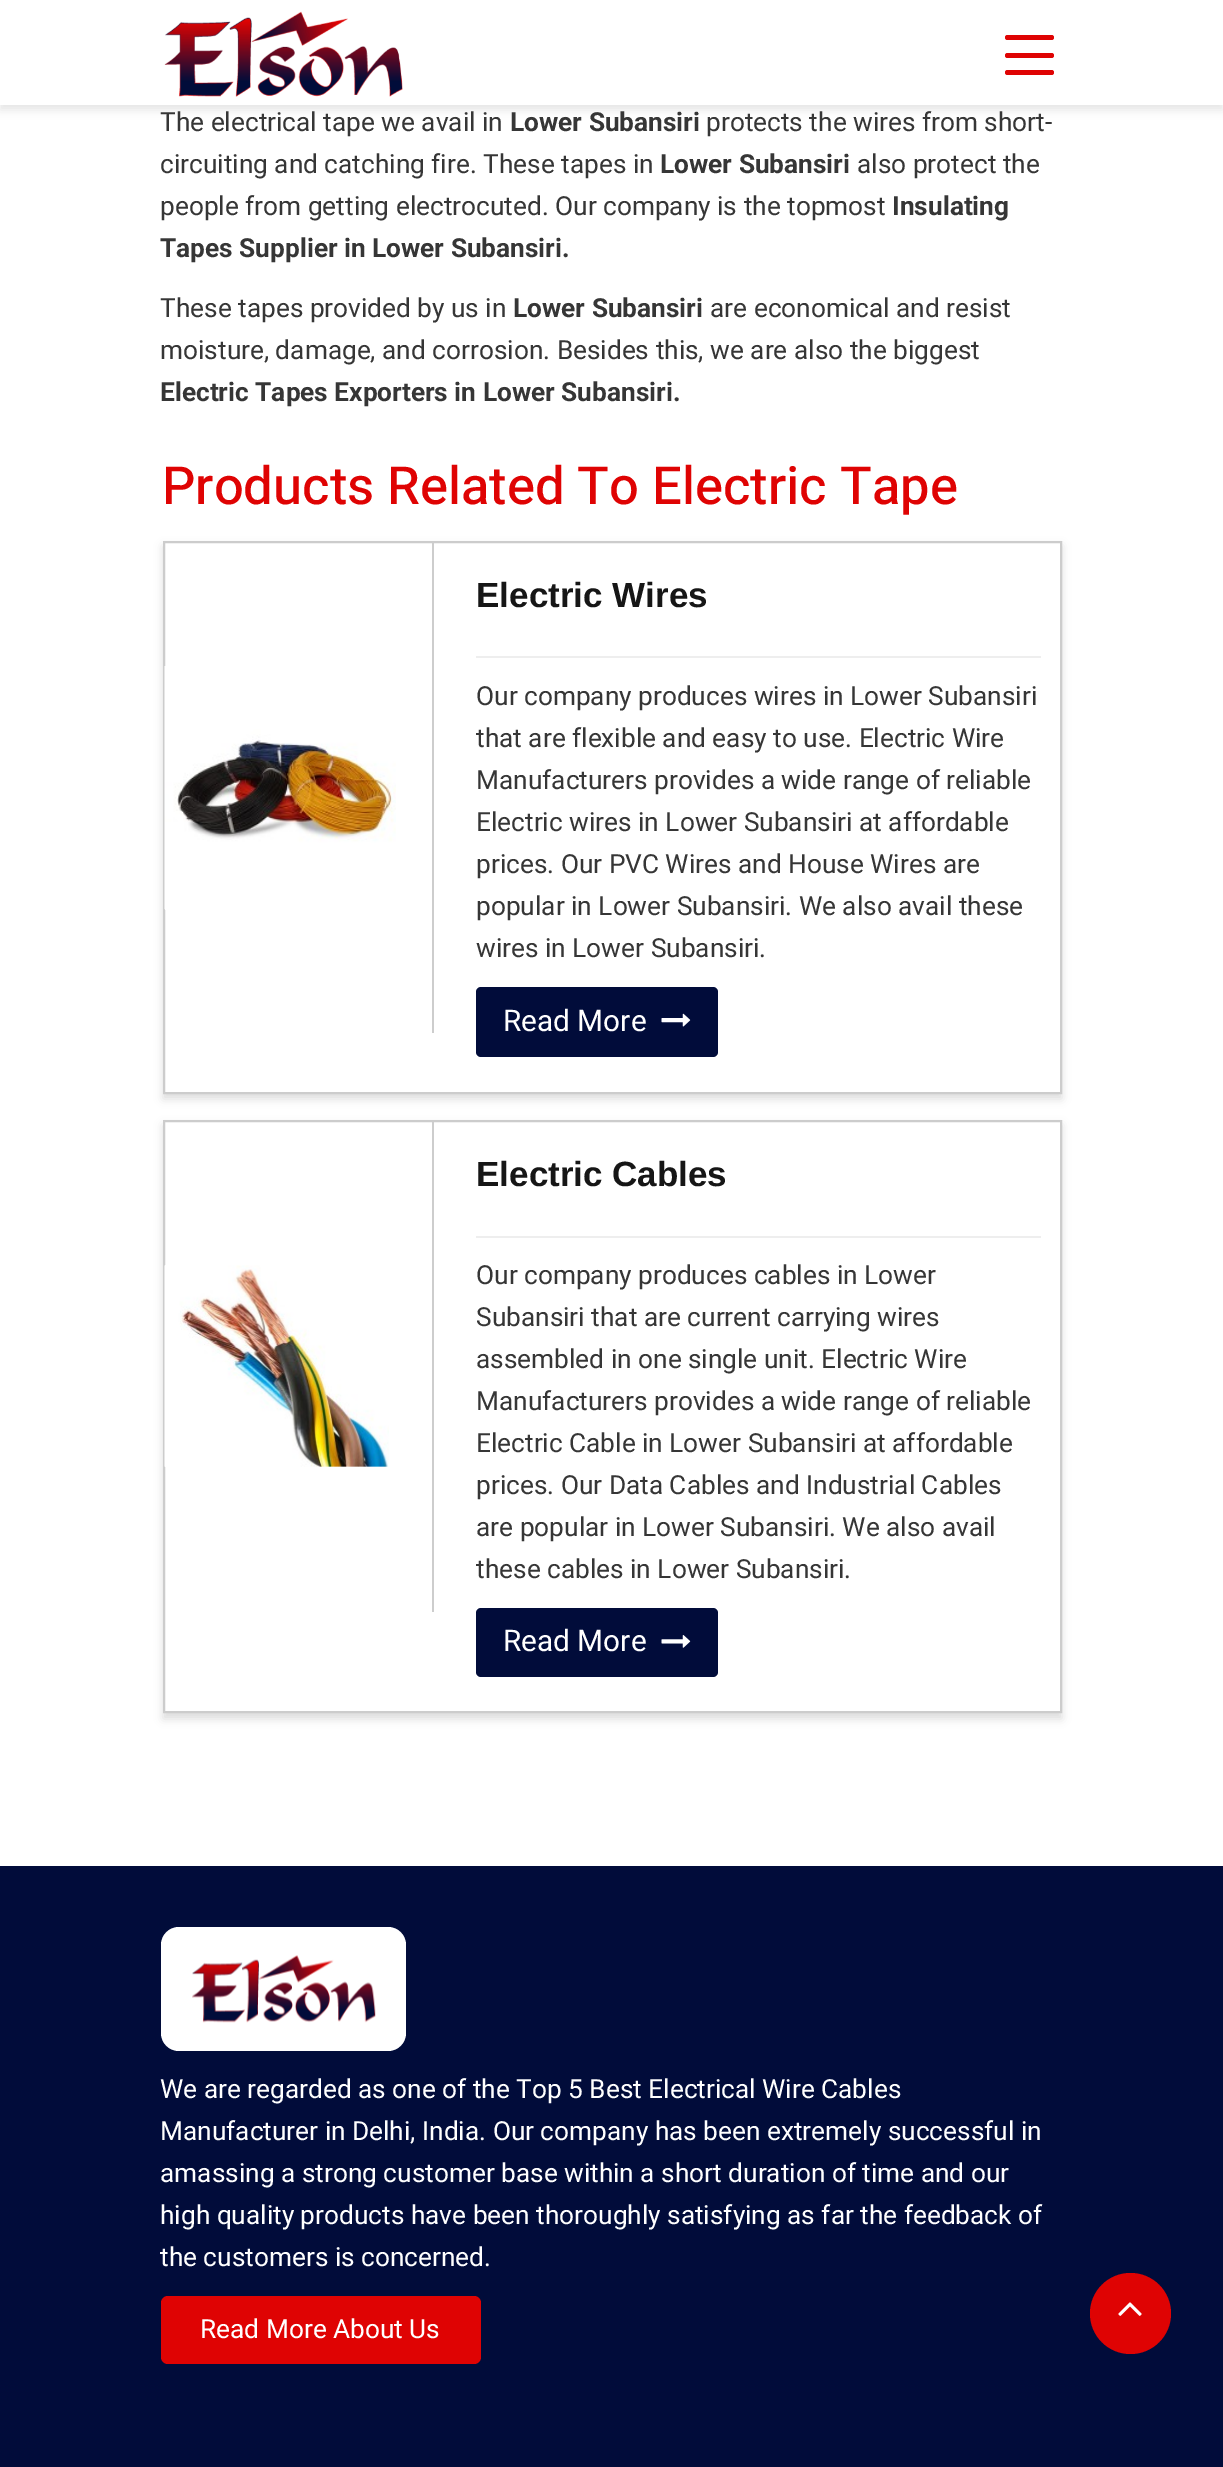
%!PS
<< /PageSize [1223 2467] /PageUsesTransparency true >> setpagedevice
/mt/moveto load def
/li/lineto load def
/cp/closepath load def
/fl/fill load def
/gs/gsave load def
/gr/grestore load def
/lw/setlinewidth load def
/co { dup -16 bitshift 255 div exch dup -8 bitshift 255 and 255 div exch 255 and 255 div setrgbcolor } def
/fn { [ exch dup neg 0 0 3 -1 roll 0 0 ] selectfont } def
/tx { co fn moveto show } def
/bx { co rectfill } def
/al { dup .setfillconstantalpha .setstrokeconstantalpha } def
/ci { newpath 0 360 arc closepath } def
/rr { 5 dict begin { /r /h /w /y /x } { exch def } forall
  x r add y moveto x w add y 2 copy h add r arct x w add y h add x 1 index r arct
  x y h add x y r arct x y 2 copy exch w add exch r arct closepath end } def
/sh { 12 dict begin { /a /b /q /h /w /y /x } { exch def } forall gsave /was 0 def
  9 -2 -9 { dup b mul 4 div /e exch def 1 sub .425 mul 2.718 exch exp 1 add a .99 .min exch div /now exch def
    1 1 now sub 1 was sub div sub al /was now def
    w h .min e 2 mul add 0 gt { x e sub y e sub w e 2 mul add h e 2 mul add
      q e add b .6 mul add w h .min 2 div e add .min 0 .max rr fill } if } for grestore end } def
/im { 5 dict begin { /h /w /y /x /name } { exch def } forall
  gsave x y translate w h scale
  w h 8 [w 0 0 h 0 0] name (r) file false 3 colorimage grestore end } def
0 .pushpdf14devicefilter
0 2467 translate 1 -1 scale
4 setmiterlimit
0 0 1223 2467 16#FFFFFF bx
16#000000 co
0 5 1223 105 0 4.5 .1 sh
0 0 1223 105 16#FFFFFF bx
(media/1.raw) 164 11 239 86 im
16#DF0303 co
1005 35 49 5 2.5 rr fl
1005 53 49 5 2.5 rr fl
1005 70 49 5 2.5 rr fl
gs
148 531 mt 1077 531 li 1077 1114 li 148 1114 li cp 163 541 mt 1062 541 li 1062 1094 li 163 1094 li cp eoclip newpath
16#D2D2D2 co
163 546 899 553 0 4.5 .75 sh
gr
16#CCCCCC co
2 lw
164 542 897 551 rectstroke
432 543 2 490 16#CDCDCD bx
(media/2.raw) 164 666 232 244 im
476 656 565 2 16#EEEEEE bx
16#010C3A co
476 987 242 70 5 rr fl
(media/3.raw) 661 1013 30 14 im
gs
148 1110 mt 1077 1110 li 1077 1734 li 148 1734 li cp 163 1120 mt 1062 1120 li 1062 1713 li 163 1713 li cp eoclip newpath
16#D2D2D2 co
163 1125 899 594 0 4.5 .75 sh
gr
16#CCCCCC co
164 1121 897 591 rectstroke
432 1122 2 490 16#CDCDCD bx
(media/4.raw) 164 1265 225 202 im
476 1236 565 2 16#EEEEEE bx
16#010C3A co
476 1608 242 69 5 rr fl
(media/5.raw) 661 1635 30 13 im
0 1866 1223 601 16#010C3A bx
16#FFFFFF co
161 1927 245 124 18 rr fl
(media/6.raw) 192 1955 184 68 im
16#DF0303 co
161 2296 320 68 7 rr fl
1130.5 2313.5 40.5 ci fl
(media/7.raw) 1118 2302 24 14 im
(The electrical tape we avail in) 160 131 /Roboto-Regular 26.25 16#363636 tx
(Lower Subansiri) 510 131 /Roboto-Bold 26.25 16#363636 tx
(protects the wires from short-) 706 131 /Roboto-Regular 26.25 16#363636 tx
(circuiting and catching fire. These tapes in) 160 173 /Roboto-Regular 26.25 16#363636 tx
(Lower Subansiri) 660 173 /Roboto-Bold 26.25 16#363636 tx
(also protect the) 857 173 /Roboto-Regular 26.25 16#363636 tx
(people from getting electrocuted. Our company is the topmost) 160 215 /Roboto-Regular 26.25 16#363636 tx
(Insulating) 892 215 /Roboto-Bold 26.25 16#363636 tx
(Tapes Supplier in Lower Subansiri.) 160 257 /Roboto-Bold 26.25 16#363636 tx
(These tapes provided by us in) 160 317 /Roboto-Regular 26.25 16#363636 tx
(Lower Subansiri) 513 317 /Roboto-Bold 26.25 16#363636 tx
(are economical and resist) 710 317 /Roboto-Regular 26.25 16#363636 tx
(moisture, damage, and corrosion. Besides this, we are also the biggest) 160 359 /Roboto-Regular 26.25 16#363636 tx
(Electric Tapes Exporters in Lower Subansiri.) 160 401 /Roboto-Bold 26.25 16#363636 tx
(Products Related To Electric Tape) 162 504 /Heebo-Medium 52.5 16#DF0303 tx
(Electric Wires) 476 607 /LiberationSans-Bold 35 16#161616 tx
(Our company produces wires in Lower Subansiri) 476 705 /Roboto-Regular 26.25 16#363636 tx
(that are flexible and easy to use. Electric Wire) 476 747 /Roboto-Regular 26.25 16#363636 tx
(Manufacturers provides a wide range of reliable) 476 789 /Roboto-Regular 26.25 16#363636 tx
(Electric wires in Lower Subansiri at affordable) 476 831 /Roboto-Regular 26.25 16#363636 tx
(prices. Our PVC Wires and House Wires are) 476 873 /Roboto-Regular 26.25 16#363636 tx
(popular in Lower Subansiri. We also avail these) 476 915 /Roboto-Regular 26.25 16#363636 tx
(wires in Lower Subansiri.) 476 957 /Roboto-Regular 26.25 16#363636 tx
(Read More) 503 1031 /Heebo-Regular 29.75 16#FFFFFF tx
(Electric Cables) 476 1186 /LiberationSans-Bold 35 16#161616 tx
(Our company produces cables in Lower) 476 1284 /Roboto-Regular 26.25 16#363636 tx
(Subansiri that are current carrying wires) 476 1326 /Roboto-Regular 26.25 16#363636 tx
(assembled in one single unit. Electric Wire) 476 1368 /Roboto-Regular 26.25 16#363636 tx
(Manufacturers provides a wide range of reliable) 476 1410 /Roboto-Regular 26.25 16#363636 tx
(Electric Cable in Lower Subansiri at affordable) 476 1452 /Roboto-Regular 26.25 16#363636 tx
(prices. Our Data Cables and Industrial Cables) 476 1494 /Roboto-Regular 26.25 16#363636 tx
(are popular in Lower Subansiri. We also avail) 476 1536 /Roboto-Regular 26.25 16#363636 tx
(these cables in Lower Subansiri.) 476 1578 /Roboto-Regular 26.25 16#363636 tx
(Read More) 503 1651 /Heebo-Regular 29.75 16#FFFFFF tx
(We are regarded as one of the Top 5 Best Electrical Wire Cables) 160 2098 /Roboto-Regular 26.25 16#FFFFFF tx
(Manufacturer in Delhi, India. Our company has been extremely successful in) 160 2140 /Roboto-Regular 26.25 16#FFFFFF tx
(amassing a strong customer base within a short duration of time and our) 160 2182 /Roboto-Regular 26.25 16#FFFFFF tx
(high quality products have been thoroughly satisfying as far the feedback of) 160 2224 /Roboto-Regular 26.25 16#FFFFFF tx
(the customers is concerned.) 160 2266 /Roboto-Regular 26.25 16#FFFFFF tx
(Read More About Us) 200 2338 /Heebo-Regular 26.25 16#FFFFFF tx
.poppdf14devicefilter showpage
